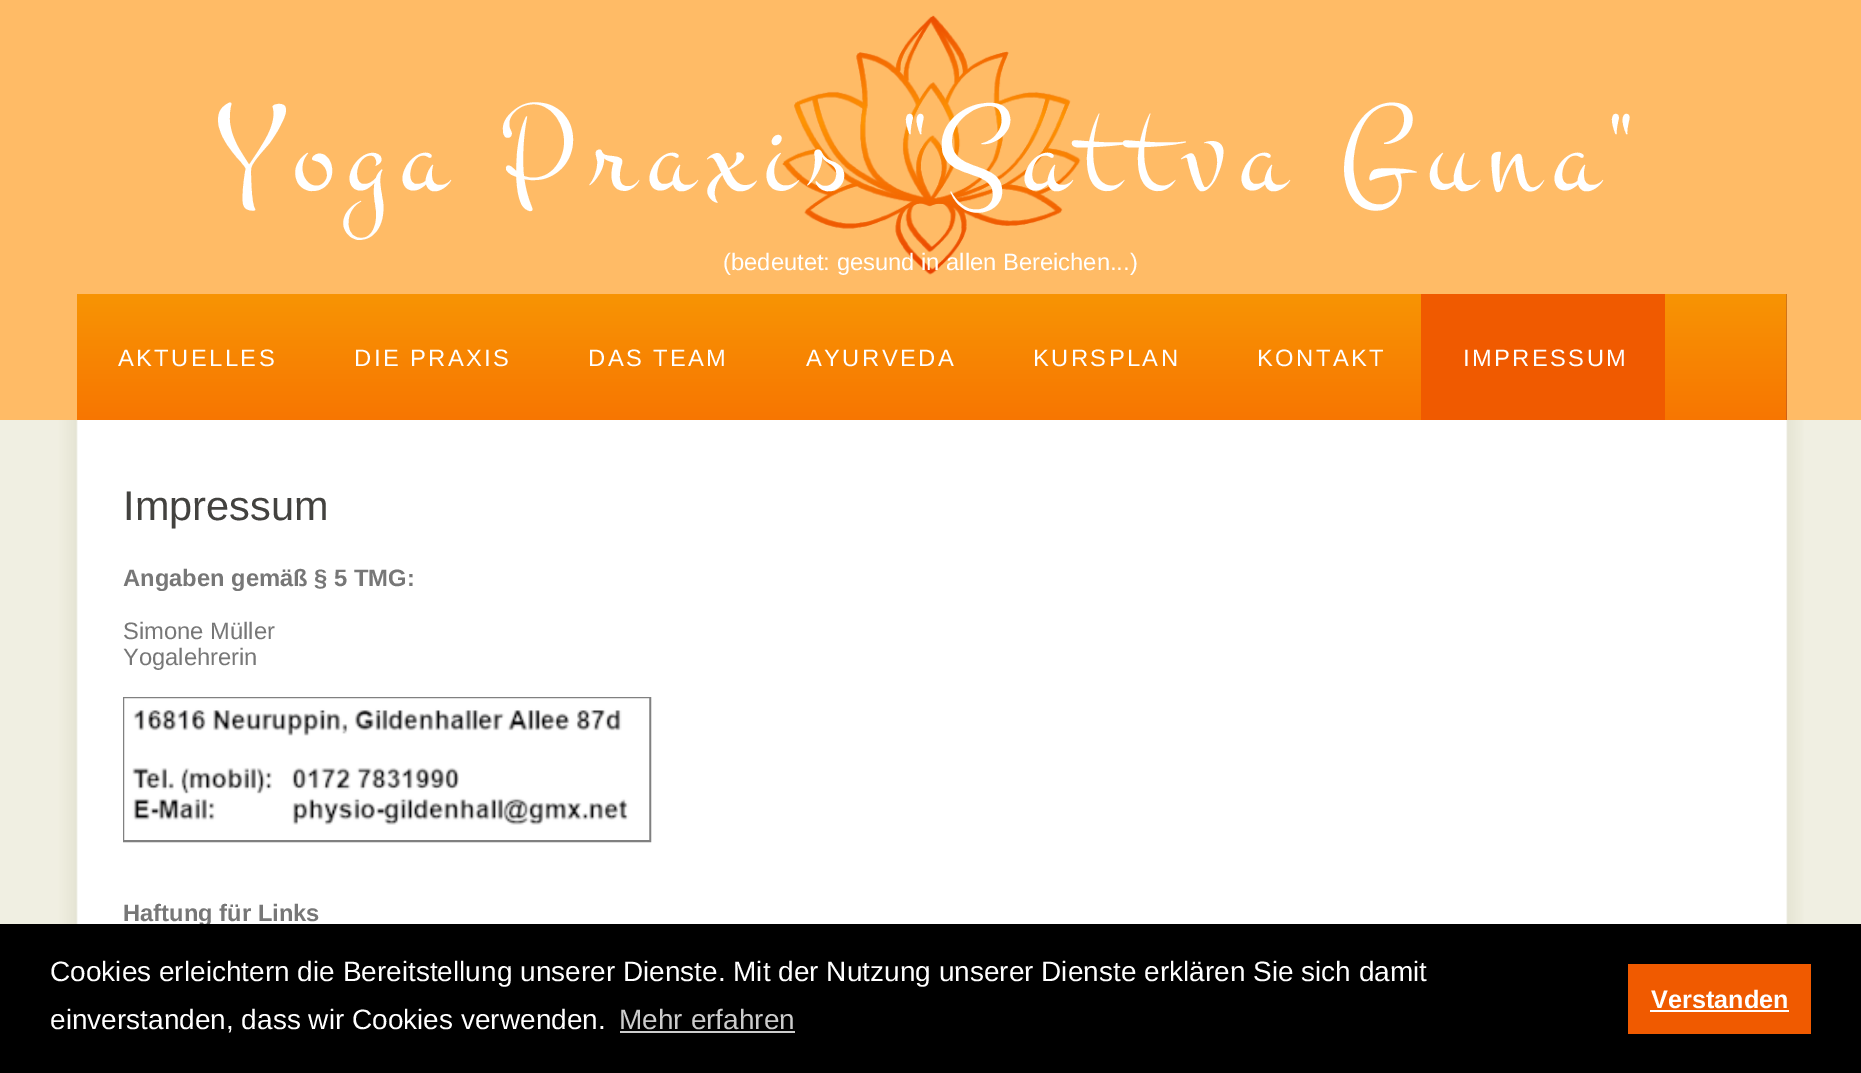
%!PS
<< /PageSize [1861 1073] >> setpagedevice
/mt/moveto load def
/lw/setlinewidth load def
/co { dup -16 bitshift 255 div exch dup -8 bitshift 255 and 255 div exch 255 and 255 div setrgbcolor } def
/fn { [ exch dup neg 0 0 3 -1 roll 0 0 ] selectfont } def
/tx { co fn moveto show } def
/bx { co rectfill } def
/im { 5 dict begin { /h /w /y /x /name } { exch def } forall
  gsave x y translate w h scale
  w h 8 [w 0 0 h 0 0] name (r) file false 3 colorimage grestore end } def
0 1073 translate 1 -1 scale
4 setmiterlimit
0 0 1861 1073 16#F0EFE2 bx
0 0 1861 420 16#FFBB66 bx
(media/1.raw) 782 15 299 260 im
(media/2.raw) 77 294 1710 126 im
1421 294 244 126 16#F05A00 bx
(media/3.raw) 58 420 1746 504 im
16#808080 co
2 lw
124 698 526 143 rectstroke
(media/4.raw) 124 698 526 142 im
/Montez-Regular 128.5 fn
16#FFFFFF co
218 189 mt 12.85 0 (Yoga Praxis "Sattva Guna") ashow
(\(bedeutet: gesund in allen Bereichen...\)) 723 270 /LiberationSans-Regular 23.75 16#FFFFFF tx
118 366 mt 2.4 0 (AKTUELLES) ashow
354 366 mt 2.4 0 (DIE PRAXIS) ashow
588 366 mt 2.4 0 (DAS TEAM) ashow
806 366 mt 2.4 0 (AYURVEDA) ashow
1033 366 mt 2.4 0 (KURSPLAN) ashow
1257 366 mt 2.4 0 (KONTAKT) ashow
1463 366 mt 2.4 0 (IMPRESSUM) ashow
(Impressum) 123 520 /LiberationSans-Regular 41.5 16#43423F tx
(Angaben gemäß § 5 TMG:) 123 586 /LiberationSans-Bold 23.75 16#777777 tx
(Simone Müller) 123 639 /LiberationSans-Regular 23.75 16#777777 tx
(Yogalehrerin) 123 665 /LiberationSans-Regular 23.75 16#777777 tx
(Haftung für Links) 123 921 /LiberationSans-Bold 23.75 16#777777 tx
0 924 1861 149 16#000000 bx
(Cookies erleichtern die Bereitstellung unserer Dienste. Mit der Nutzung unserer Dienste erklären Sie sich damit) 50 981 /LiberationSans-Regular 28 16#FFFFFF tx
(einverstanden, dass wir Cookies verwenden.) 50 1029 /LiberationSans-Regular 28 16#FFFFFF tx
(Mehr erfahren) 619 1029 /LiberationSans-Regular 28 16#CCCCCC tx
620 1031 175 2 16#CCCCCC bx
1628 964 183 70 16#F05A00 bx
(Verstanden) 1651 1008 /LiberationSans-Bold 25.25 16#FFFFFF tx
1650 1010 139 2 16#FFFFFF bx
showpage
